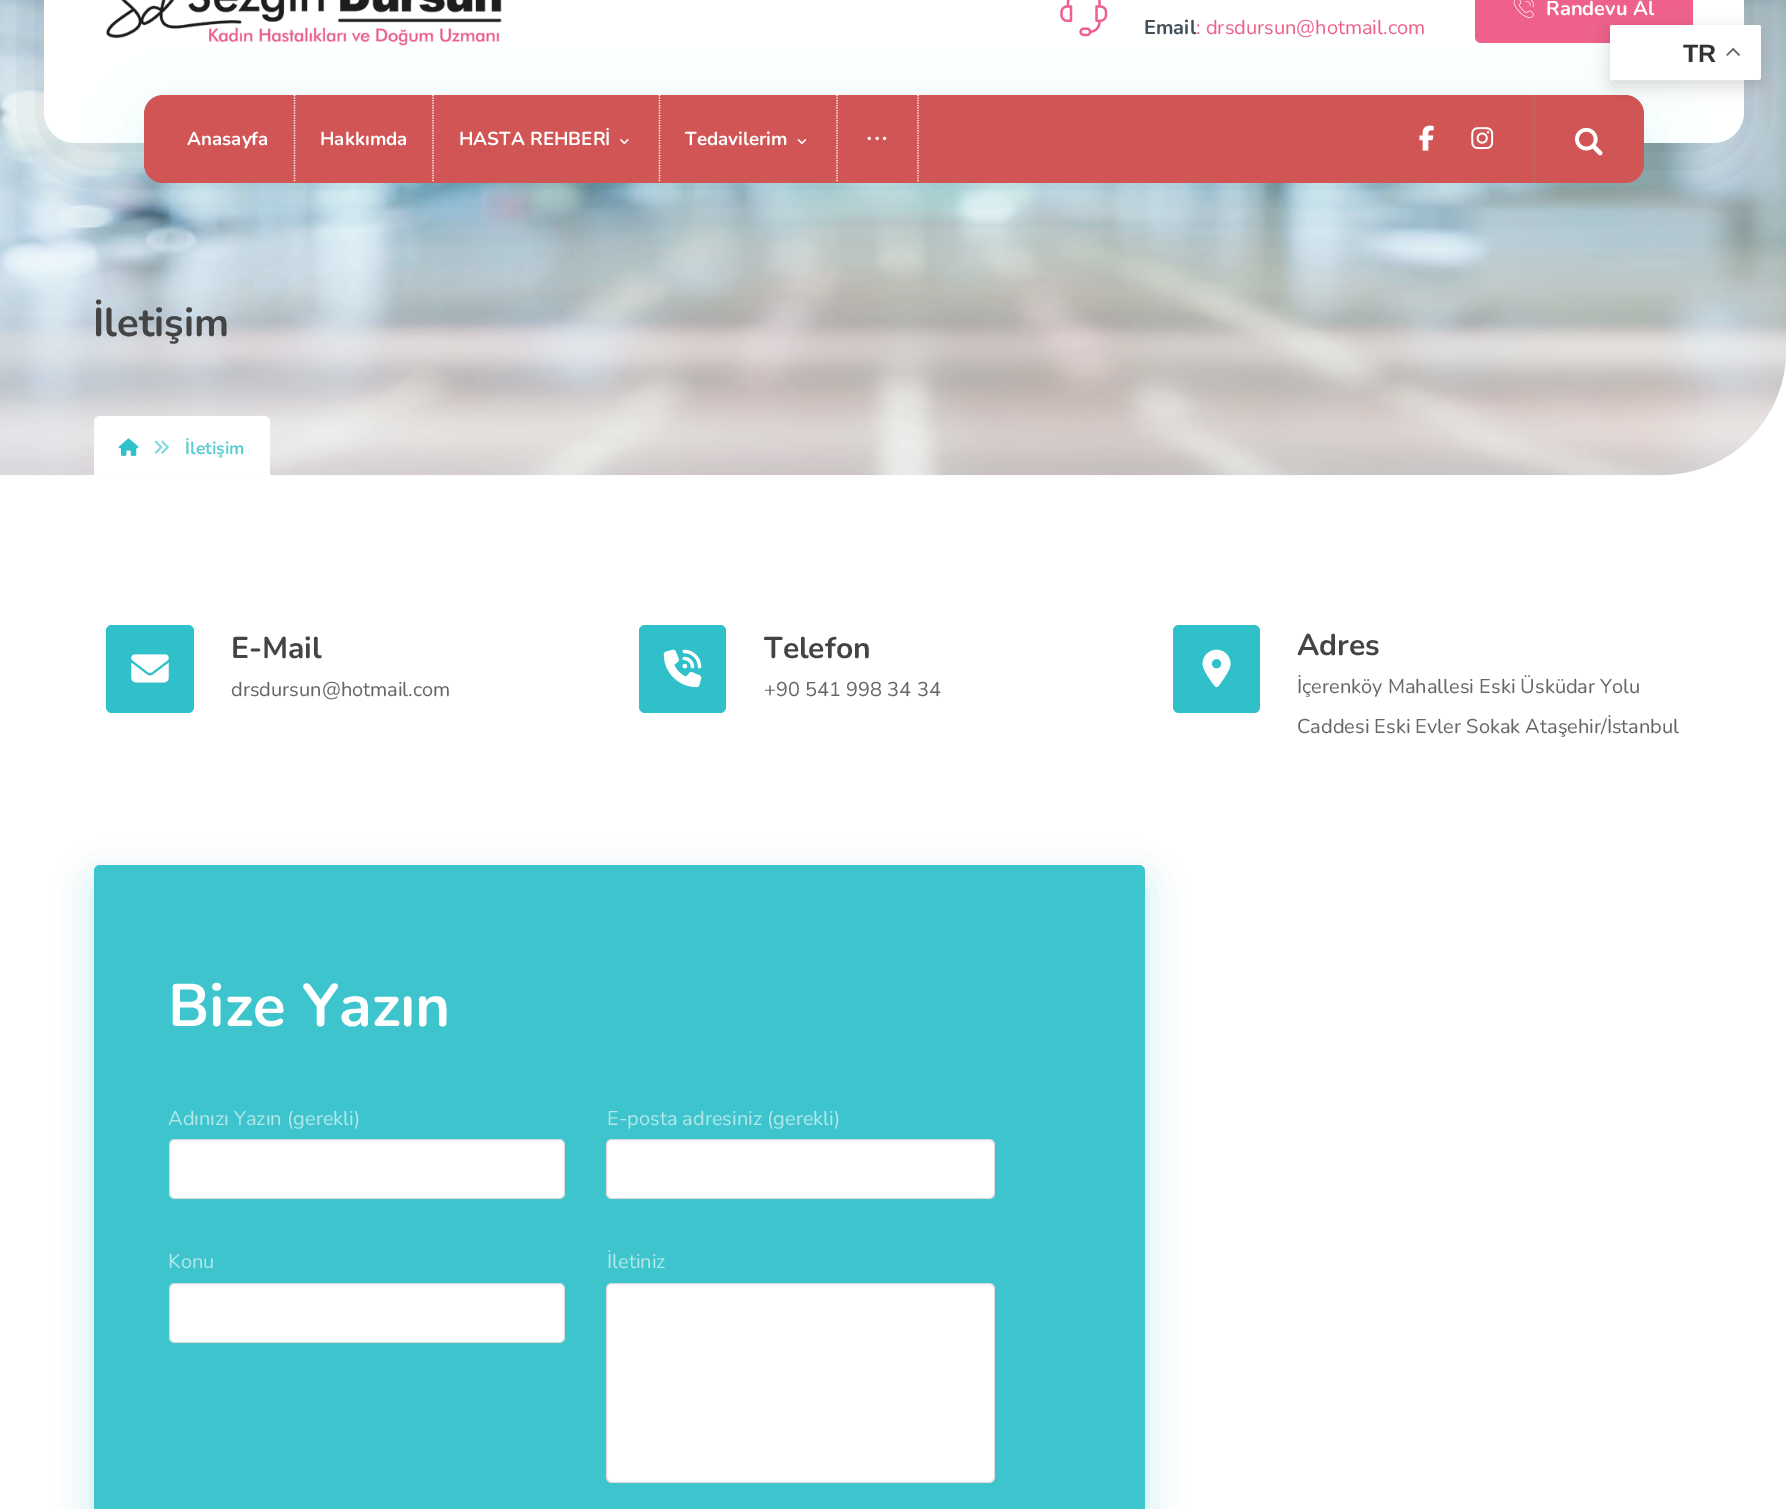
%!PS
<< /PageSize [1786 1509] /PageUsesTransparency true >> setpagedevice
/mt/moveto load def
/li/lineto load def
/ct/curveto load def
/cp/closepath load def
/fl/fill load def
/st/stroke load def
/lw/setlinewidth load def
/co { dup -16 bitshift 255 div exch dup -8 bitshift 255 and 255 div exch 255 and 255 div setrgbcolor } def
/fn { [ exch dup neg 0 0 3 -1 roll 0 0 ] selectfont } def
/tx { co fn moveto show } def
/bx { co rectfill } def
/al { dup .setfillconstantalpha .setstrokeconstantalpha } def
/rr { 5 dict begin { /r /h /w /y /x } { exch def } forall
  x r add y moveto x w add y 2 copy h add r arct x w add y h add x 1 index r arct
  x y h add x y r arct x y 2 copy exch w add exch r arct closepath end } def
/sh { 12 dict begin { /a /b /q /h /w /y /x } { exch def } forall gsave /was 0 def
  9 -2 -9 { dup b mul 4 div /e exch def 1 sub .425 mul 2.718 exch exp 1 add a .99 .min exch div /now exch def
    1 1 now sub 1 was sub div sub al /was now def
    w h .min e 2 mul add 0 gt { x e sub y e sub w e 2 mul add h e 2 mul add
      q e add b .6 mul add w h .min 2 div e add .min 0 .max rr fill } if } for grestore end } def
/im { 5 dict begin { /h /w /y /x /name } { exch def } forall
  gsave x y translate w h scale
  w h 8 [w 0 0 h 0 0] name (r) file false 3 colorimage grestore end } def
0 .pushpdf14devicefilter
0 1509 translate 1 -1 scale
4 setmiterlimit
0 0 1786 1509 16#FFFFFF bx
(media/10.raw) 0 0 1786 476 im
16#000000 co
44 -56 1700 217 31 37.5 .15 sh
16#FFFFFF co
44 -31 1700 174 31 rr fl
(media/1.raw) 106 0 396 46 im
(media/3.raw) 1060 0 48 37 im
16#2FC0C9 co
144 114 1500 87 19 37.5 .15 sh
16#EE618B co
1475 -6 218 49 6 rr fl
(media/2.raw) 1513 0 21 18 im
16#D25555 co
144 95 1500 88 19 rr fl
16#FFFFFF co
1.2 lw
[1.25 1.25] 0 setdash
294.5 95 mt 294.5 182.5 li st
433 95 mt 433 182.5 li st
659.5 95 mt 659.5 182.5 li st
(media/4.raw) 620 138 9 6 im
837 95 mt 837 182.5 li st
(media/5.raw) 797 138 10 6 im
918 95 mt 918 182.5 li st
(media/6.raw) 867 136 20 5 im
(media/7.raw) 1419 125 15 26 im
(media/8.raw) 1471 127 23 23 im
1534 95 1 88 16#C96565 bx
(media/9.raw) 1575 127 28 29 im
16#FFFFFF co
100 416 mt 264 416 li 267.5 416 270 418.5 270 422 ct 270 475 li 94 475 li 94 422 li 94 418.5 96.5 416 100 416 ct cp fl
(media/11.raw) 118 438 21 18 im
(media/12.raw) 154 440 15 14 im
16#2FC0C9 co
106 625 88 88 6 rr fl
(media/13.raw) 131 654 38 29 im
639 625 87 88 6 rr fl
(media/14.raw) 663 649 39 39 im
1173 625 87 88 6 rr fl
(media/15.raw) 1202 649 29 39 im
94 881 1051 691 6 19 .31 sh
16#3EC4CD co
94 865 1051 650 6 rr fl
16#FFFFFF co
169 1139 396 60 6 rr fl
0.4 al
16#A7A7A7 co
1 lw
[] 0 setdash
169.5 1139.5 395 59 5.5 rr st
1 al
16#FFFFFF co
606 1139 389 60 6 rr fl
0.4 al
16#A7A7A7 co
606.5 1139.5 388 59 5.5 rr st
1 al
16#FFFFFF co
169 1283 396 60 6 rr fl
0.4 al
16#A7A7A7 co
169.5 1283.5 395 59 5.5 rr st
1 al
16#FFFFFF co
606 1283 389 200 6 rr fl
0.4 al
16#A7A7A7 co
606.5 1283.5 388 199 5.5 rr st
1 al
16#000000 co
1610 31 151 55 2.5 9.5 .15 sh
16#FFFFFF co
1610 25 151 55 2.5 rr fl
(media/16.raw) 1726 47 14 9 im
(Randevu Al) 1546 15 /Nunito-Bold 20 16#FFFFFF tx
(Email) 1144 34 /Nunito-Bold 20 16#424F59 tx
(: drsdursun@hotmail.com) 1196 34 /Nunito-Regular 20 16#EE618B tx
(Anasayfa) 187 145 /Nunito-Bold 18.75 16#FFFFFF tx
(Hakkımda) 320 145 /Nunito-Bold 18.75 16#FFFFFF tx
(HASTA REHBERİ) 459 145 /Nunito-Bold 18.75 16#FFFFFF tx
(Tedavilerim) 685 145 /Nunito-Bold 18.75 16#FFFFFF tx
(İletişim) 93 336 /Nunito-Bold 40 16#444444 tx
(İletişim) 185 454 /Nunito-Bold 17.5 16#59CDD4 tx
(E-Mail) 231 658 /Nunito-Bold 30 16#444444 tx
(drsdursun@hotmail.com) 231 696 /Nunito-Regular 20 16#666666 tx
(Telefon) 764 658 /Nunito-Bold 30 16#444444 tx
(+90 541 998 34 34) 764 696 /Nunito-Regular 20 16#666666 tx
(Adres) 1297 655 /Nunito-Bold 30 16#444444 tx
(İçerenköy Mahallesi Eski Üsküdar Yolu) 1297 693 /Nunito-Regular 20 16#666666 tx
(Caddesi Eski Evler Sokak Ataşehir/İstanbul) 1297 733 /Nunito-Regular 20 16#666666 tx
(Bize Yazın) 168 1026 /Nunito-Bold 60 16#FFFFFF tx
(Adınızı Yazın \(gerekli\)) 168 1125 /Nunito-Regular 20 16#B2E7EB tx
(E-posta adresiniz \(gerekli\)) 607 1125 /Nunito-Regular 20 16#B2E7EB tx
(Konu) 168 1268 /Nunito-Regular 20 16#B2E7EB tx
(İletiniz) 607 1268 /Nunito-Regular 20 16#B2E7EB tx
(TR) 1683 62 /LiberationSans-Bold 25 16#333333 tx
.poppdf14devicefilter showpage
